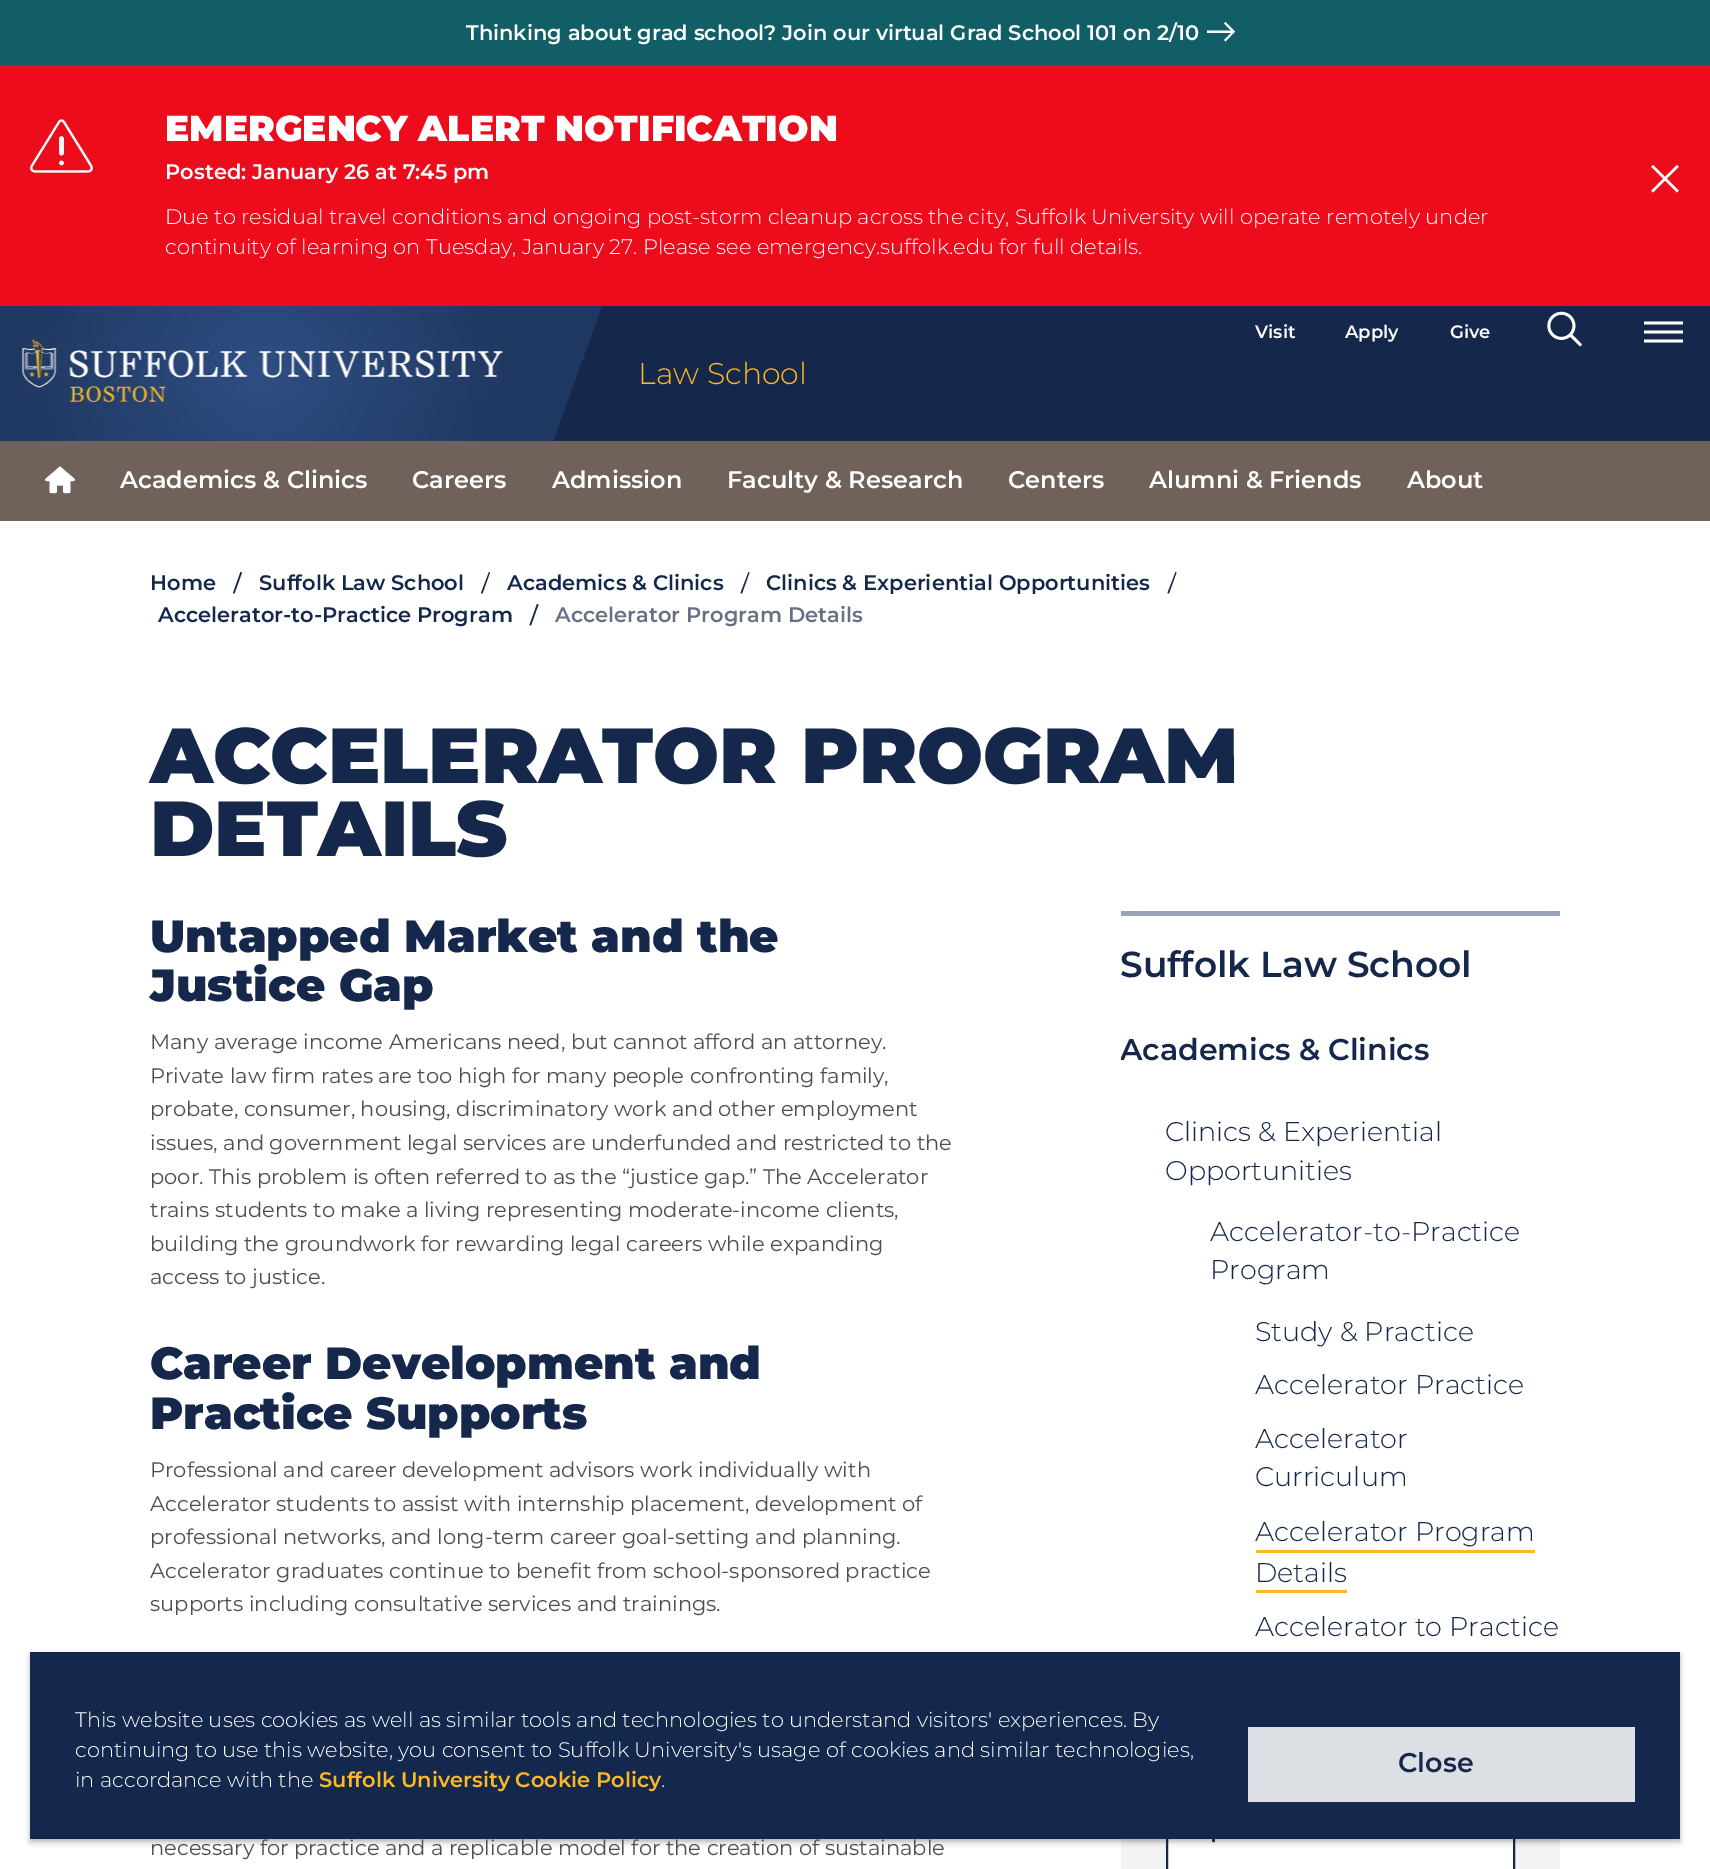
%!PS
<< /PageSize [1710 1869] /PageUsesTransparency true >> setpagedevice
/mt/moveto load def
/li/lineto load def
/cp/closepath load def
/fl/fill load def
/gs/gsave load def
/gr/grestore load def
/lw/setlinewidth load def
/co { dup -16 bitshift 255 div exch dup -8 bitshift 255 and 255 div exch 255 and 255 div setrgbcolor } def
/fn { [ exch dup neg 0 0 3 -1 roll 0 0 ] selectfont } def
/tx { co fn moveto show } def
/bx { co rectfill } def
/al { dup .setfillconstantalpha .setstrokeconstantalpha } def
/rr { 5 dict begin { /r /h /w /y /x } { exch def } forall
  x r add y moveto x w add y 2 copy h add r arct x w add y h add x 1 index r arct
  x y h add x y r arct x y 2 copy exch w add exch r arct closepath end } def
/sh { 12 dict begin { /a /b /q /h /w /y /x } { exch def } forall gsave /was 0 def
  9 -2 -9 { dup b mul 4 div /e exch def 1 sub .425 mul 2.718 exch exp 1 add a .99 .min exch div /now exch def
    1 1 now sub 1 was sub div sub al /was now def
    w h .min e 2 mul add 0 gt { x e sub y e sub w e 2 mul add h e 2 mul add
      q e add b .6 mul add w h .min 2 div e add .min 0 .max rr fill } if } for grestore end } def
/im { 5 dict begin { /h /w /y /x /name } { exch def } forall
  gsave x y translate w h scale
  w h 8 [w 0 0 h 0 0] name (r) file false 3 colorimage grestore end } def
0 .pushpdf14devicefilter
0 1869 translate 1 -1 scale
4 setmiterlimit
0 0 1710 1869 16#FFFFFF bx
0 0 1710 65 16#115E67 bx
16#FFFFFF co
1224 23.5 mt 1231 30.5 li 1207 30.5 li 1207 33 li 1231 33 li 1224 40 li 1225.5 41.5 li 1235 31.5 li 1225.5 22 li cp fl
0 65 1710 241 16#EC0C1C bx
(media/1.raw) 30 119 63 54 im
(media/2.raw) 1651 164 28 29 im
553 306 1157 135 16#15284B bx
(media/3.raw) 1547 311 35 36 im
16#FFFFFF co
1644 321.5 mt 1683 321.5 li 1683 324.5 li 1644 324.5 li cp 1644 330.5 mt 1683 330.5 li 1683 333.5 li 1644 333.5 li cp 1644 339.5 mt 1683 339.5 li 1683 342.5 li 1644 342.5 li cp fl
16#1F3861 co
-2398 306 mt 602 306 li 553 441 li -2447 441 li cp fl
gs 33 306 mt 493 306 li 493 441 li 33 441 li cp clip newpath 263 374 translate 249 249 scale
<< /ShadingType 3 /ColorSpace /DeviceRGB /Coords [0 0 0 0 0 1] /Extend [true true] /Function << /FunctionType 2 /Domain [0 1] /C0 [.18 .302 .51] /C1 [.125 .22 .38] /N 1 >> >> shfill gr
(media/4.raw) 22 339 481 63 im
0 441 1710 80 16#70625A bx
(media/5.raw) 45 466 30 28 im
16#15284B co
240.5 572 mt 242 572.5 li 234.5 593.5 li 233 593 li cp fl
489 572 mt 490 572.5 li 482.5 593.5 li 481 593 li cp fl
748.5 572 mt 749.5 572.5 li 742 593.5 li 740.5 593 li cp fl
1175.5 572 mt 1176.5 572.5 li 1169 593.5 li 1167.5 593 li cp fl
537 604 mt 538.5 604.5 li 531 625.5 li 529.5 625 li cp fl
1121 911 439 5 16#99A4BA bx
1256 1550 279 3 16#FDB924 bx
1256 1590 91 3 16#FDB924 bx
1121 1839 439 30 16#F3F3F3 bx
1168 1839 345 30 16#FFFFFF bx
16#15284B co
2 lw
1167 1792 347 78 rectstroke
(media/6.raw) 1212 1839 3 4 im
16#000000 co
30 1655 1650 187 0 3 .3 sh
30 1652 1650 187 16#13284C bx
1248 1727 387 75 16#DCDFE4 bx
(Thinking about grad school? Join our virtual Grad School 101 on 2/10) 466 40 /Montserrat-SemiBold 21 16#FFFFFF tx
(EMERGENCY ALERT NOTIFICATION) 165 141 /Montserrat-Black 36 16#FFFFFF tx
(Posted: January 26 at 7:45 pm) 165 179 /Montserrat-SemiBold 21 16#FFFFFF tx
(Due to residual travel conditions and ongoing post-storm cleanup across the city, Suffolk University will operate remotely under) 165 224 /Montserrat-Light 21 16#FFFFFF tx
(continuity of learning on Tuesday, January 27. Please see emergency.suffolk.edu for full details.) 165 254 /Montserrat-Light 21 16#FFFFFF tx
(Visit) 1255 338 /Montserrat-SemiBold 18 16#FFFFFF tx
(Apply) 1345 338 /Montserrat-SemiBold 18 16#FFFFFF tx
(Give) 1450 338 /Montserrat-SemiBold 18 16#FFFFFF tx
(Law School) 638 384 /Montserrat-Light 30 16#FDB924 tx
(Academics & Clinics) 120 488 /Montserrat-SemiBold 24 16#FFFFFF tx
(Careers) 412 488 /Montserrat-SemiBold 24 16#FFFFFF tx
(Admission) 552 488 /Montserrat-SemiBold 24 16#FFFFFF tx
(Faculty & Research) 727 488 /Montserrat-SemiBold 24 16#FFFFFF tx
(Centers) 1008 488 /Montserrat-SemiBold 24 16#FFFFFF tx
(Alumni & Friends) 1149 488 /Montserrat-SemiBold 24 16#FFFFFF tx
(About) 1407 488 /Montserrat-SemiBold 24 16#FFFFFF tx
(Home) 150 590 /Montserrat-SemiBold 21 16#15284B tx
(Suffolk Law School) 259 590 /Montserrat-SemiBold 21 16#15284B tx
(Academics & Clinics) 507 590 /Montserrat-SemiBold 21 16#15284B tx
(Clinics & Experiential Opportunities) 766 590 /Montserrat-SemiBold 21 16#15284B tx
(Accelerator-to-Practice Program) 158 622 /Montserrat-SemiBold 21 16#15284B tx
(Accelerator Program Details) 555 622 /Montserrat-SemiBold 21 16#657084 tx
(ACCELERATOR PROGRAM) 150 783 /Montserrat-Black 78 16#15284B tx
(DETAILS) 150 856 /Montserrat-Black 78 16#15284B tx
(Untapped Market and the) 150 952 /Montserrat-Black 45 16#15284B tx
(Justice Gap) 150 1001 /Montserrat-Black 45 16#15284B tx
(Many average income Americans need, but cannot afford an attorney.) 150 1049 /Montserrat-Regular 21 16#4E4F53 tx
(Private law firm rates are too high for many people confronting family,) 150 1083 /Montserrat-Regular 21 16#4E4F53 tx
(probate, consumer, housing, discriminatory work and other employment) 150 1116 /Montserrat-Regular 21 16#4E4F53 tx
(issues, and government legal services are underfunded and restricted to the) 150 1150 /Montserrat-Regular 21 16#4E4F53 tx
(poor. This problem is often referred to as the “justice gap.” The Accelerator) 150 1184 /Montserrat-Regular 21 16#4E4F53 tx
(trains students to make a living representing moderate-income clients,) 150 1217 /Montserrat-Regular 21 16#4E4F53 tx
(building the groundwork for rewarding legal careers while expanding) 150 1251 /Montserrat-Regular 21 16#4E4F53 tx
(access to justice.) 150 1284 /Montserrat-Regular 21 16#4E4F53 tx
(Career Development and) 150 1379 /Montserrat-Black 45 16#15284B tx
(Practice Supports) 150 1429 /Montserrat-Black 45 16#15284B tx
(Professional and career development advisors work individually with) 150 1477 /Montserrat-Regular 21 16#4E4F53 tx
(Accelerator students to assist with internship placement, development of) 150 1511 /Montserrat-Regular 21 16#4E4F53 tx
(professional networks, and long-term career goal-setting and planning.) 150 1544 /Montserrat-Regular 21 16#4E4F53 tx
(Accelerator graduates continue to benefit from school-sponsored practice) 150 1578 /Montserrat-Regular 21 16#4E4F53 tx
(supports including consultative services and trainings.) 150 1611 /Montserrat-Regular 21 16#4E4F53 tx
(necessary for practice and a replicable model for the creation of sustainable) 150 1855 /Montserrat-Regular 21 16#4E4F53 tx
(Suffolk Law School) 1120 977 /Montserrat-SemiBold 36 16#15284B tx
gs
1121 1016 439 700 rectclip
(Academics & Clinics) 1120 1060 /Montserrat-SemiBold 30 16#15284B tx
gr
(Clinics & Experiential) 1165 1141 /Montserrat-Light 27 16#15284B tx
(Opportunities) 1165 1180 /Montserrat-Light 27 16#15284B tx
(Accelerator-to-Practice) 1210 1241 /Montserrat-Light 27 16#15284B tx
(Program) 1210 1279 /Montserrat-Light 27 16#15284B tx
(Study & Practice) 1255 1341 /Montserrat-Light 27 16#15284B tx
(Accelerator Practice) 1255 1394 /Montserrat-Light 27 16#15284B tx
(Accelerator) 1255 1448 /Montserrat-Light 27 16#15284B tx
(Curriculum) 1255 1486 /Montserrat-Light 27 16#15284B tx
(Accelerator Program) 1255 1541 /Montserrat-Light 27 16#15284B tx
(Details) 1255 1582 /Montserrat-Light 27 16#15284B tx
(Accelerator to Practice) 1255 1636 /Montserrat-Light 27 16#15284B tx
(This website uses cookies as well as similar tools and technologies to understand visitors' experiences. By) 75 1727 /Montserrat-Light 21 16#FFFFFF tx
(continuing to use this website, you consent to Suffolk University's usage of cookies and similar technologies,) 75 1757 /Montserrat-Light 21 16#FFFFFF tx
(in accordance with the) 75 1787 /Montserrat-Light 21 16#FFFFFF tx
(Suffolk University Cookie Policy) 319 1787 /Montserrat-SemiBold 21 16#FDB924 tx
(.) 661 1787 /Montserrat-Light 21 16#FFFFFF tx
(Close) 1398 1772 /Montserrat-SemiBold 27 16#15284B tx
.poppdf14devicefilter showpage
